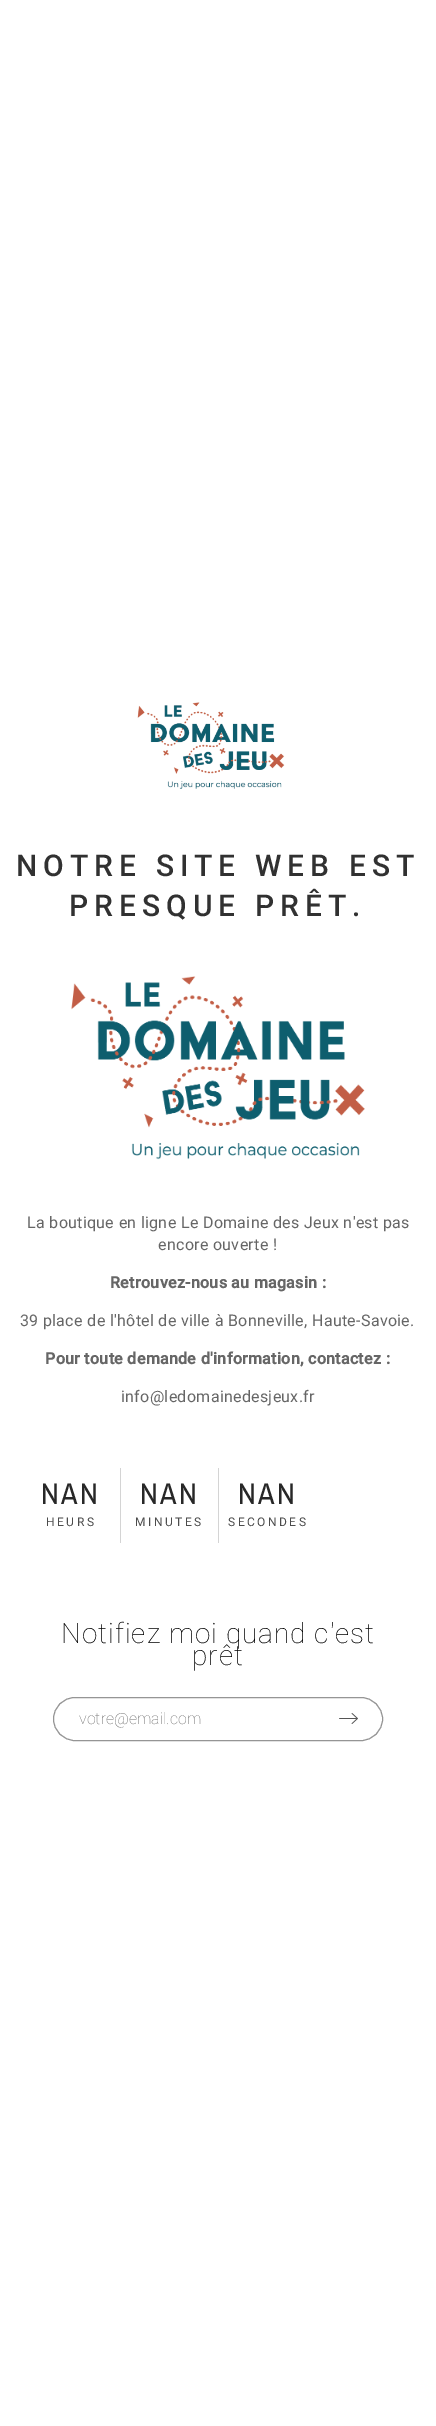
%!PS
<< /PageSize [436 2426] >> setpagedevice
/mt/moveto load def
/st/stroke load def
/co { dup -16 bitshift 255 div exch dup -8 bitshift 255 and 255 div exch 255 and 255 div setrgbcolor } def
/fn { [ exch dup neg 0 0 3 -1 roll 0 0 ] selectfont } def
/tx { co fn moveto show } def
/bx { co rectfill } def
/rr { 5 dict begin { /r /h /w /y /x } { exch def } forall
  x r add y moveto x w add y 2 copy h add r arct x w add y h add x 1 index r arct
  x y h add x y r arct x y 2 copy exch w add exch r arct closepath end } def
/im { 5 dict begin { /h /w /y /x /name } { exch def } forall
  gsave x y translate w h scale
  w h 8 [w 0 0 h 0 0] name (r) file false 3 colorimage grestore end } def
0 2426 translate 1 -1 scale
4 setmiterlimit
0 0 436 2426 16#FFFFFF bx
(media/1.raw) 137 702 148 87 im
(media/2.raw) 71 976 294 184 im
120 1468 1 75 16#D4D4D4 bx
218 1468 1 75 16#D4D4D4 bx
16#959595 co
53.5 1697.5 329 43 21.5 rr st
(media/3.raw) 339 1713 19 11 im
/Roboto-Medium 30 fn
16#313131 co
16 876 mt 6 0 (NOTRE SITE WEB EST) ashow
69 916 mt 6 0 (PRESQUE PRÊT.) ashow
/Roboto-Regular 16 fn
16#666666 co
27 1228 mt .32 0 (La boutique en ligne Le Domaine des Jeux n'est pas) ashow
158 1250 mt .32 0 (encore ouverte !) ashow
/Roboto-Bold 16 fn
110 1288 mt .32 0 (Retrouvez-nous au magasin :) ashow
/Roboto-Regular 16 fn
20 1326 mt .32 0 (39 place de l'hôtel de ville à Bonneville, Haute-Savoie.) ashow
/Roboto-Bold 16 fn
45 1364 mt .32 0 (Pour toute demande d'information, contactez :) ashow
/Roboto-Regular 16 fn
121 1402 mt .32 0 (info@ledomainedesjeux.fr) ashow
/ArchivoNarrow-Regular 30 fn
16#272727 co
41 1504 mt 2.5 0 (NAN) ashow
/Roboto-Regular 12 fn
16#4C4C4C co
46 1526 mt 2.5 0 (HEURS) ashow
/ArchivoNarrow-Regular 30 fn
16#272727 co
140 1504 mt 2.5 0 (NAN) ashow
/Roboto-Regular 12 fn
16#4C4C4C co
135 1526 mt 2.5 0 (MINUTES) ashow
/ArchivoNarrow-Regular 30 fn
16#272727 co
238 1504 mt 2.5 0 (NAN) ashow
/Roboto-Regular 12 fn
16#4C4C4C co
228 1526 mt 2.5 0 (SECONDES) ashow
/Roboto-Thin 28 fn
16#000000 co
61 1643 mt 1 0 (Notifiez moi quand c'est) ashow
192 1665 mt 1 0 (prêt) ashow
(votre@email.com) 79 1724 /Roboto-Thin 16 16#757575 tx
showpage
